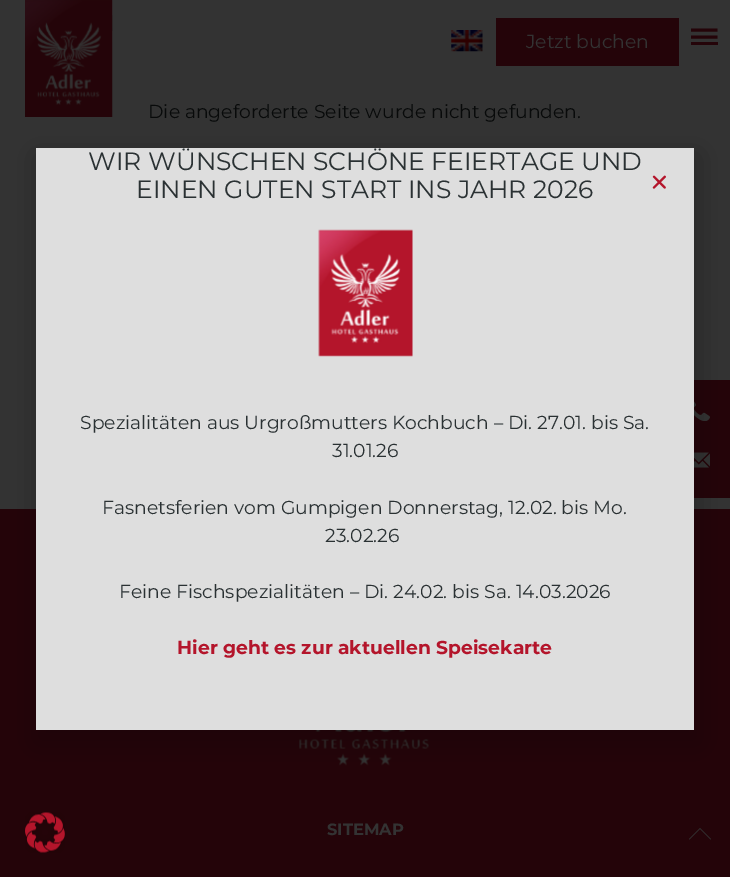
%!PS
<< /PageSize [730 877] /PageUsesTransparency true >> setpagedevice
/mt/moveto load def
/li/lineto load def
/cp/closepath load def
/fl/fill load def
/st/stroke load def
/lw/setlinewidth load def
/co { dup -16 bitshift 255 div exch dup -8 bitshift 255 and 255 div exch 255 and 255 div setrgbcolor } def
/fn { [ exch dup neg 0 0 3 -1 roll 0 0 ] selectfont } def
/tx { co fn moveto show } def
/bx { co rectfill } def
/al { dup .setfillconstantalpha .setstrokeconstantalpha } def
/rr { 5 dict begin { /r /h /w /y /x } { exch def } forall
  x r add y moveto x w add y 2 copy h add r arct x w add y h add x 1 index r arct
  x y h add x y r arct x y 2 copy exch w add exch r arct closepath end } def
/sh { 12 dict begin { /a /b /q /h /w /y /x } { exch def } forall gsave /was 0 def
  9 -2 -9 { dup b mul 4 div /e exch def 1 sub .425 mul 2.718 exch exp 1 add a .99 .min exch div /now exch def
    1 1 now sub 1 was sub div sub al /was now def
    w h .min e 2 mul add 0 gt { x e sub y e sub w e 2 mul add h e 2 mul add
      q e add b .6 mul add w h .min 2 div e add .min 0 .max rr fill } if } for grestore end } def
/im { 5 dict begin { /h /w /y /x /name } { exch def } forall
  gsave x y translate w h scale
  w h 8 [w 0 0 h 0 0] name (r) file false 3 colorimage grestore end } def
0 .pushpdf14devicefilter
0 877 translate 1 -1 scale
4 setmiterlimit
0 0 730 877 16#333333 bx
(media/1.raw) 25 0 88 117 im
(media/2.raw) 451 30 32 22 im
496 18 183 48 16#240409 bx
3 lw
691 30 mt 717.5 30 li 691 37 mt 717.5 37 li st
691 42 27 3 16#240409 bx
694 380 36 118 16#240409 bx
(media/3.raw) 694 401 16 20 im
(media/4.raw) 694 452 16 16 im
0 509 730 368 16#240409 bx
16#333333 co
700 828 mt 689 839 li 689.5 839.5 li 700 829 li 710.5 839.5 li 711 839 li cp fl
(media/8.raw) 299 730 130 36 im
16#000000 co
35 154 665 590 0 14.5 .2 sh
36 148 658 582 16#DEDEDE bx
(media/5.raw) 318 229 95 128 im
(media/6.raw) 652 175 14 14 im
(media/7.raw) 25 812 40 41 im
(Jetzt buchen) 526 48 /Montserrat-Regular 18.75 16#333333 tx
(Die angeforderte Seite wurde nicht gefunden.) 148 118 /Montserrat-Regular 18.75 16#080A0A tx
(WIR WÜNSCHEN SCHÖNE FEIERTAGE UND) 88 170 /Montserrat-Regular 25 16#2A3133 tx
(EINEN GUTEN START INS JAHR 2026) 136 198 /Montserrat-Regular 25 16#2A3133 tx
(Spezialitäten aus Urgroßmutters Kochbuch – Di. 27.01. bis Sa.) 80 429 /Montserrat-Regular 18.75 16#2A3133 tx
(31.01.26) 332 457 /Montserrat-Regular 18.75 16#2A3133 tx
(Fasnetsferien vom Gumpigen Donnerstag, 12.02. bis Mo.) 102 514 /Montserrat-Regular 18.75 16#2A3133 tx
(23.02.26) 325 542 /Montserrat-Regular 18.75 16#2A3133 tx
(Feine Fischspezialitäten – Di. 24.02. bis Sa. 14.03.2026) 119 598 /Montserrat-Regular 18.75 16#2A3133 tx
(Hier geht es zur aktuellen Speisekarte) 177 654 /Montserrat-Thin 18.75 16#B4152B tx
(SITEMAP) 327 835 /Montserrat-Thin 16.25 16#333333 tx
.poppdf14devicefilter showpage
